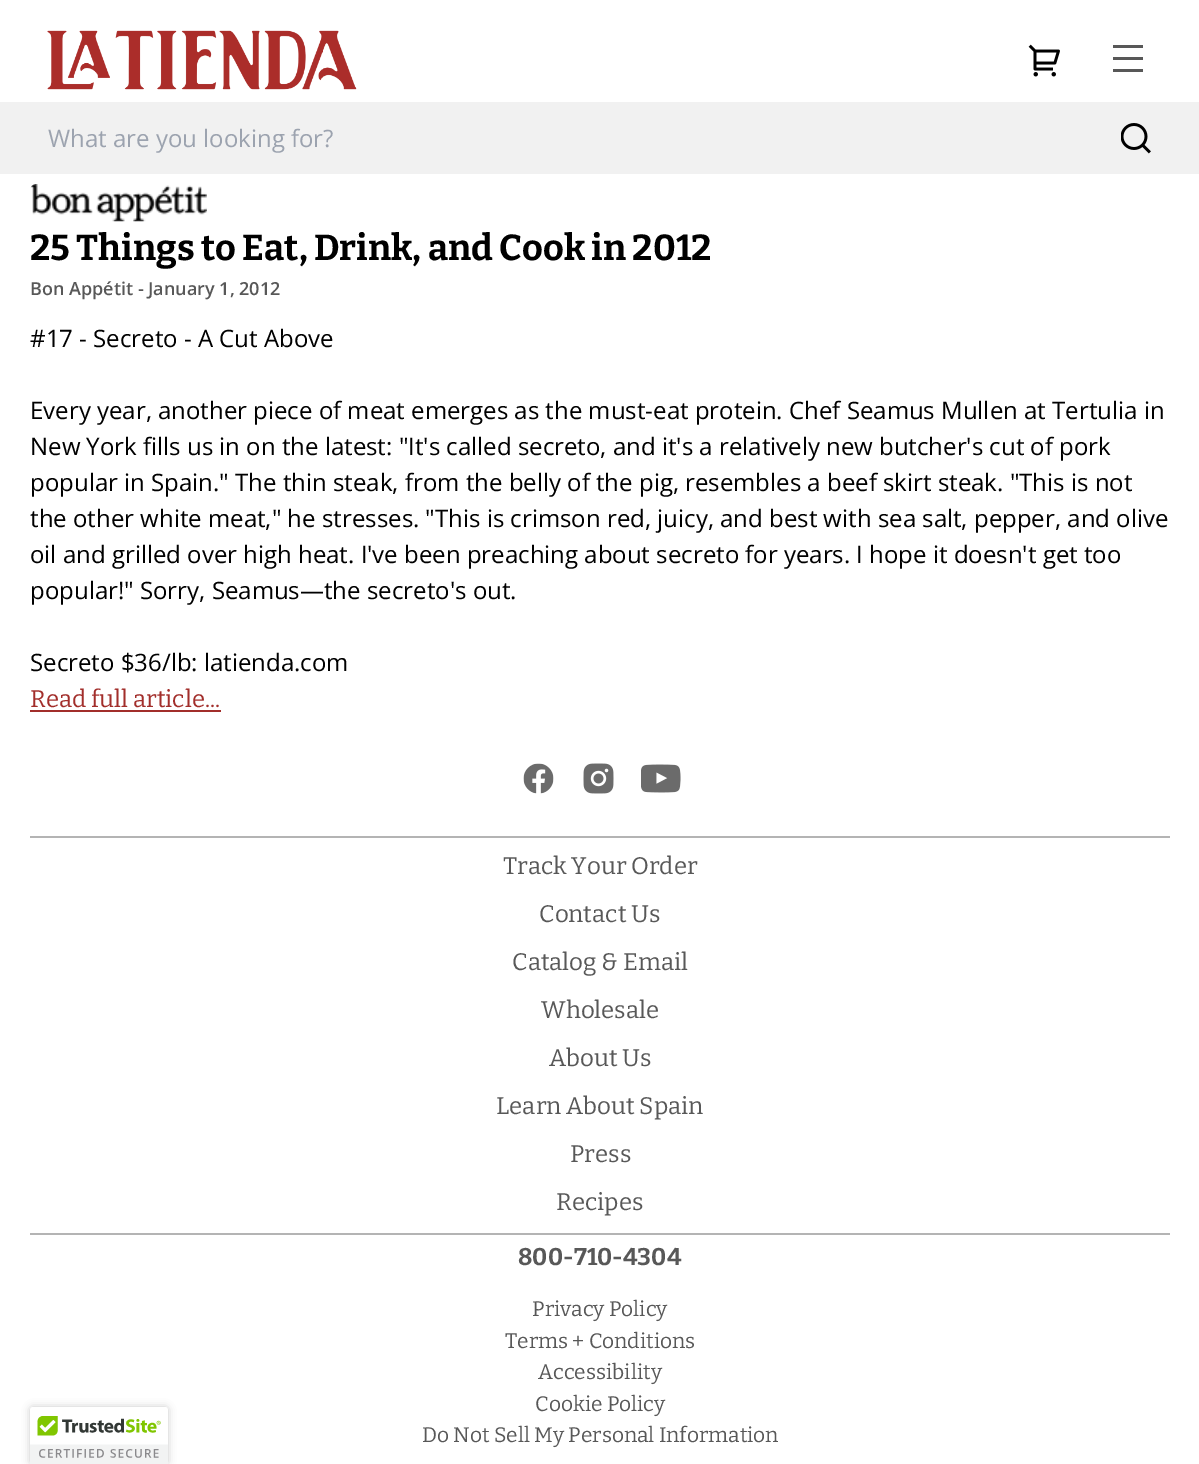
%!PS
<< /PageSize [1199 1464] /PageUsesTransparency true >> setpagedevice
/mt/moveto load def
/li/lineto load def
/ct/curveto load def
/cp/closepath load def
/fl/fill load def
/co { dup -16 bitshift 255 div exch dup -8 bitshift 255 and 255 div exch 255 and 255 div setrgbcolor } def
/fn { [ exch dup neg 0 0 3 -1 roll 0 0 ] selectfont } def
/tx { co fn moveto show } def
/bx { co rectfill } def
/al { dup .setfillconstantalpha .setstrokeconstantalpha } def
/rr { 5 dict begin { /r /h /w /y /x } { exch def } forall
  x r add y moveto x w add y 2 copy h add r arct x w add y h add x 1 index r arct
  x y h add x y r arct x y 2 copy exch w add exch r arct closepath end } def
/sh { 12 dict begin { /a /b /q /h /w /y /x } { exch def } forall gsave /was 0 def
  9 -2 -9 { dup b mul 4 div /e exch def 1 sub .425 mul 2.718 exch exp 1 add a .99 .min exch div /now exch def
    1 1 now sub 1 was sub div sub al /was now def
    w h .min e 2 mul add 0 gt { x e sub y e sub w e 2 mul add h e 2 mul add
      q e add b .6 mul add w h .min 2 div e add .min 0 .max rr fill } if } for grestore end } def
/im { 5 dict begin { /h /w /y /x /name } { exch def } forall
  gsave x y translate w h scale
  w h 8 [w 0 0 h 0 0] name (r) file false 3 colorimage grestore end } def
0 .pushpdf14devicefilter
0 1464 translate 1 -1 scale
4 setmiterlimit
0 0 1199 1464 16#FFFFFF bx
(media/1.raw) 47 30 310 60 im
(media/2.raw) 1028 44 32 33 im
1113 45 30 3 16#585858 bx
1113 57 30 3 16#585858 bx
1113 69 30 3 16#585858 bx
0 102 1199 72 16#F1F1F1 bx
(media/3.raw) 1121 123 30 31 im
(media/4.raw) 30 184 177 38 im
30 710 191 2 16#A22E2B bx
(media/5.raw) 523 763 31 31 im
(media/6.raw) 583 763 31 31 im
(media/7.raw) 641 764 40 29 im
30 836 1140 2 16#B4B4B4 bx
30 1233 1140 2 16#B4B4B4 bx
16#000000 co
30 1407 138 57 3 4 .2 sh
16#FFFFFF co
33 1407 mt 165 1407 li 166.5 1407 168 1408.5 168 1410 ct 168 1464 li 30 1464 li 30 1410 li 30 1408.5 31.5 1407 33 1407 ct cp fl
(media/8.raw) 30 1408 138 56 im
(What are you looking for?) 48 147 /OpenSans-Regular 24 16#9CA3AF tx
(25 Things to Eat, Drink, and Cook in 2012) 30 260 /Bitter-Bold 36 16#000000 tx
(Bon Appétit - January 1, 2012) 30 295 /OpenSans-SemiBold 18 16#585858 tx
(#17 - Secreto - A Cut Above) 30 347 /OpenSans-Regular 24 16#000000 tx
(Every year, another piece of meat emerges as the must-eat protein. Chef Seamus Mullen at Tertulia in) 30 419 /OpenSans-Regular 24 16#000000 tx
(New York fills us in on the latest: "It's called secreto, and it's a relatively new butcher's cut of pork) 30 455 /OpenSans-Regular 24 16#000000 tx
(popular in Spain." The thin steak, from the belly of the pig, resembles a beef skirt steak. "This is not) 30 491 /OpenSans-Regular 24 16#000000 tx
(the other white meat," he stresses. "This is crimson red, juicy, and best with sea salt, pepper, and olive) 30 527 /OpenSans-Regular 24 16#000000 tx
(oil and grilled over high heat. I've been preaching about secreto for years. I hope it doesn't get too) 30 563 /OpenSans-Regular 24 16#000000 tx
(popular!" Sorry, Seamus—the secreto's out.) 30 599 /OpenSans-Regular 24 16#000000 tx
(Secreto $36/lb: latienda.com) 30 671 /OpenSans-Regular 24 16#000000 tx
(Read full article...) 30 707 /Bitter-Regular 24 16#A22E2B tx
(Track Your Order) 503 874 /Bitter-Regular 24 16#585858 tx
(Contact Us) 539 922 /Bitter-Regular 24 16#585858 tx
(Catalog & Email) 512 970 /Bitter-Regular 24 16#585858 tx
(Wholesale) 541 1018 /Bitter-Regular 24 16#585858 tx
(About Us) 549 1066 /Bitter-Regular 24 16#585858 tx
(Learn About Spain) 496 1114 /Bitter-Regular 24 16#585858 tx
(Press) 570 1162 /Bitter-Regular 24 16#585858 tx
(Recipes) 556 1210 /Bitter-Regular 24 16#585858 tx
(800-710-4304) 518 1265 /Bitter-Bold 24 16#585858 tx
(Privacy Policy) 532 1316 /Bitter-Regular 21 16#585858 tx
(Terms + Conditions) 505 1348 /Bitter-Regular 21 16#585858 tx
(Accessibility) 538 1379 /Bitter-Regular 21 16#585858 tx
(Cookie Policy) 535 1411 /Bitter-Regular 21 16#585858 tx
(Do Not Sell My Personal Information) 422 1442 /Bitter-Regular 21 16#585858 tx
.poppdf14devicefilter showpage
